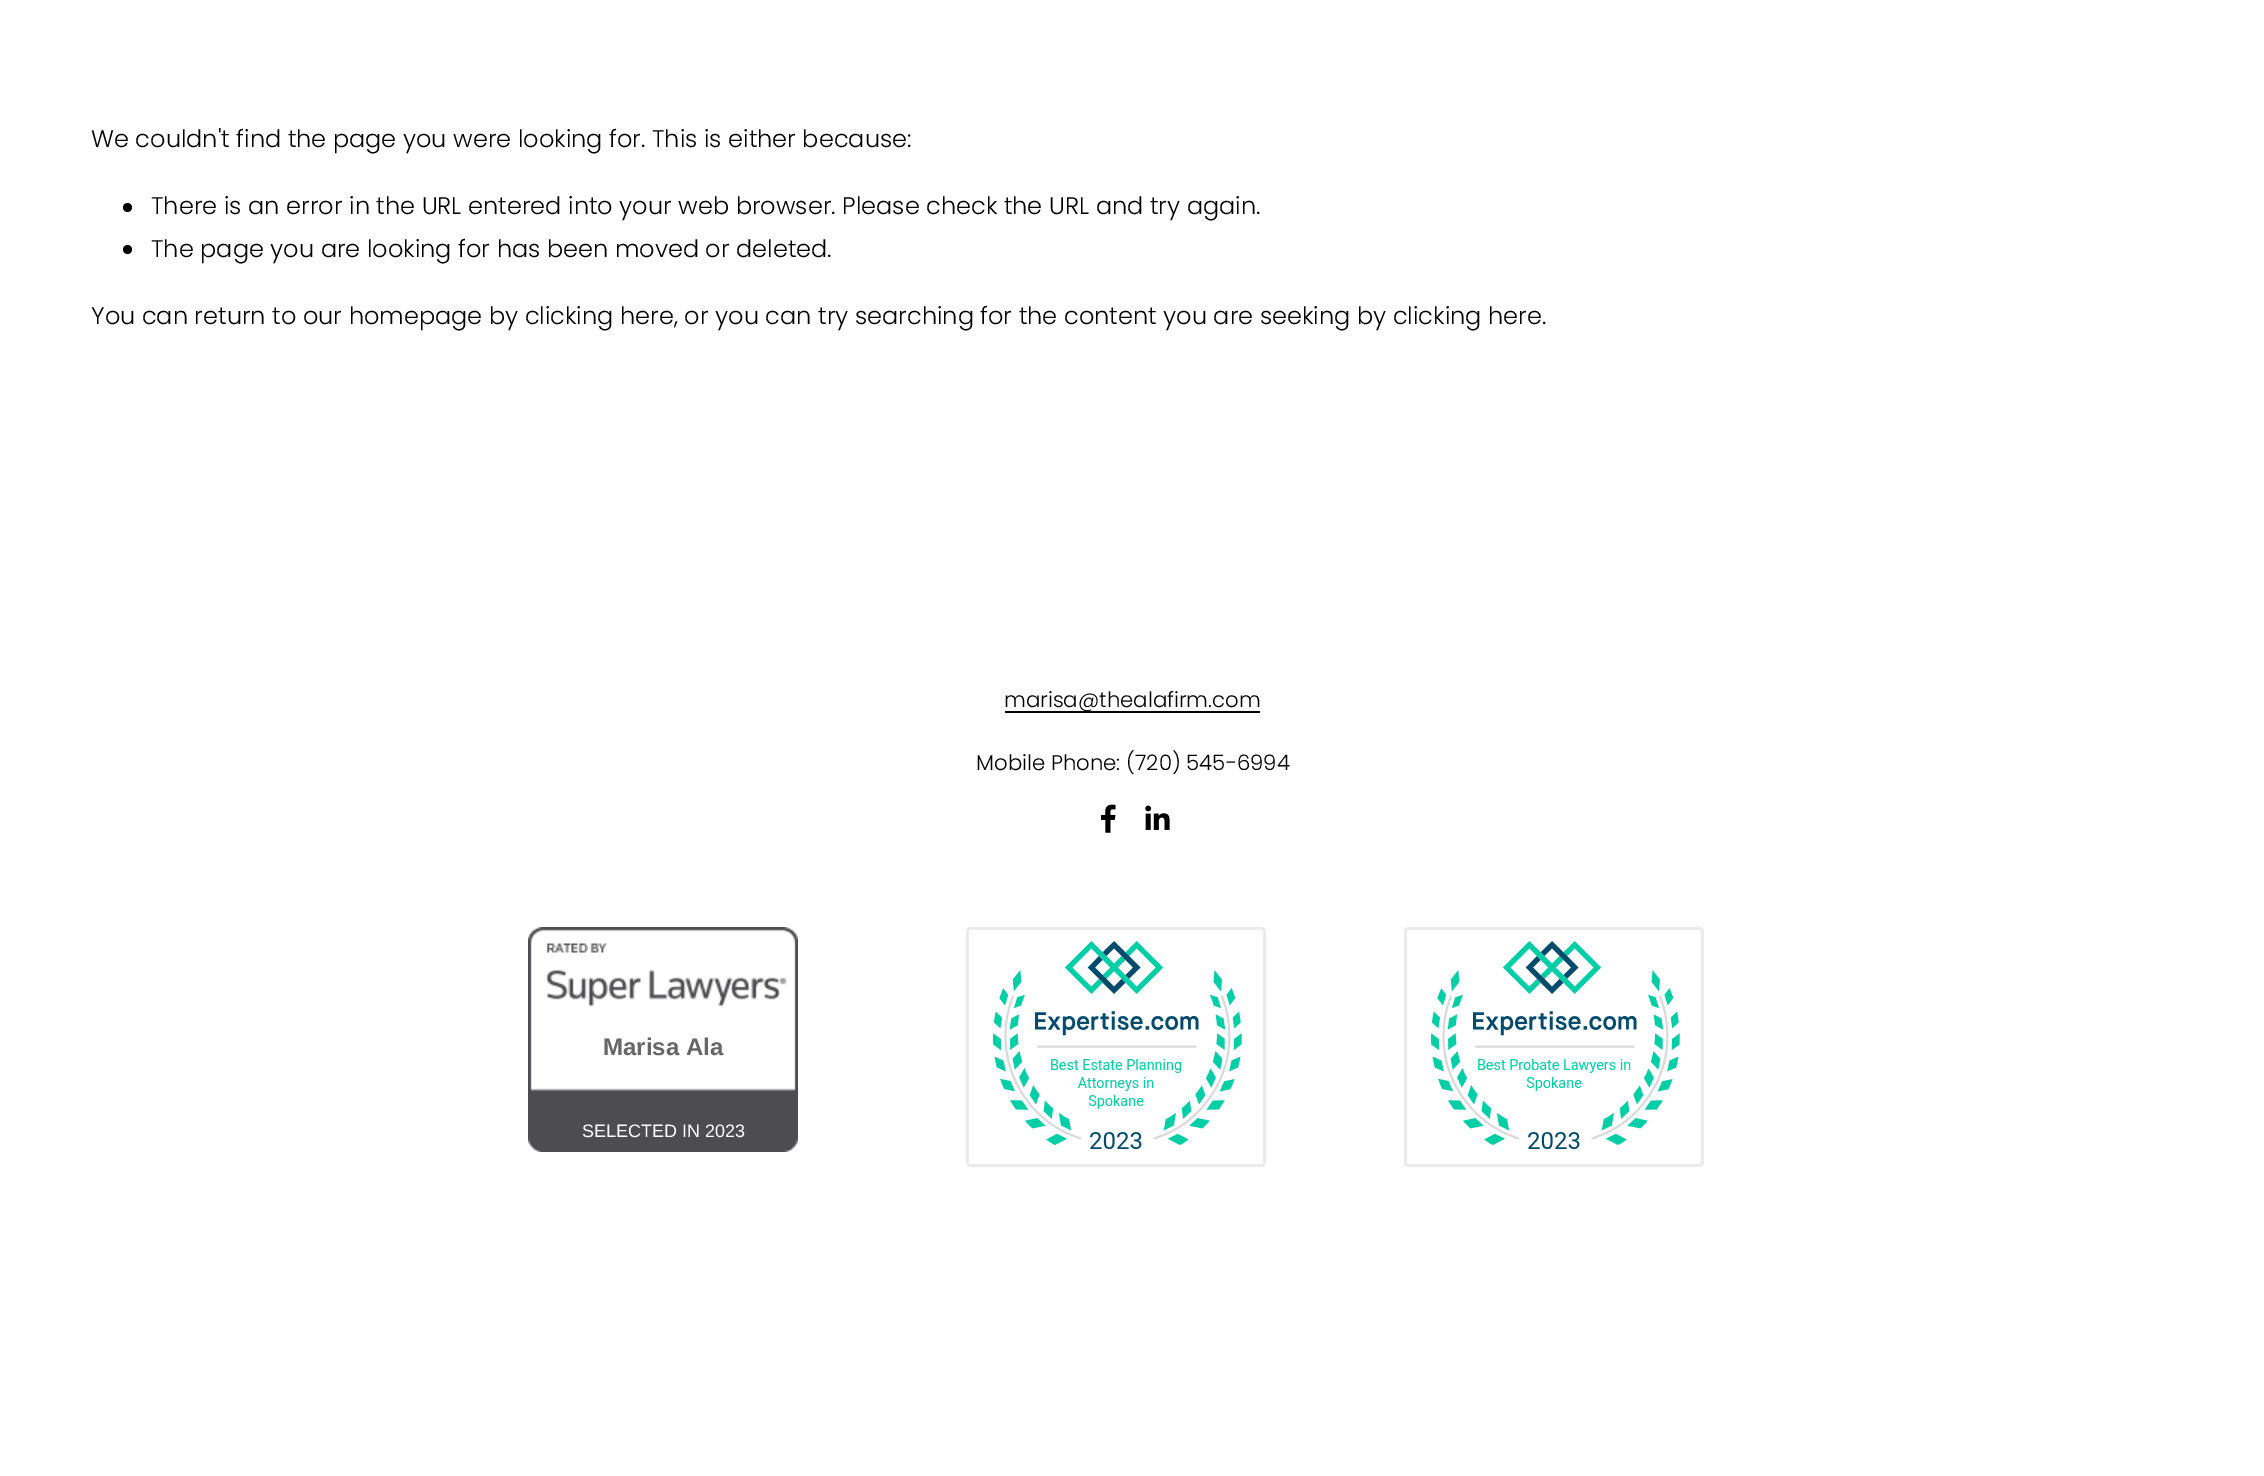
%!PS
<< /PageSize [2264 1476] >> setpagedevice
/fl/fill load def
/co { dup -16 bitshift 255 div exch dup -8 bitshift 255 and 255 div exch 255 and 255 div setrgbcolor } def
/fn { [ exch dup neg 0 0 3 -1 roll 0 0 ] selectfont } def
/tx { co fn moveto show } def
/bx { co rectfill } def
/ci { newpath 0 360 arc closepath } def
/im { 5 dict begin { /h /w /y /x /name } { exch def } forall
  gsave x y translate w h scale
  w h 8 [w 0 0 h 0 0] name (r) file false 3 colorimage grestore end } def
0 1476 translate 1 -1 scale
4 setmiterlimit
0 0 2264 1476 16#FFFFFF bx
16#000000 co
127.5 207.5 4.5 ci fl
127.5 249.5 4.5 ci fl
1005 711 255 2 16#000000 bx
(media/1.raw) 1101 804 15 29 im
(media/2.raw) 1145 805 25 25 im
(media/3.raw) 528 927 270 225 im
(media/4.raw) 966 927 300 240 im
(media/5.raw) 1404 927 300 240 im
(We couldn't find the page you were looking for. This is either because:) 91 147 /Poppins-Light 24 16#000000 tx
(There is an error in the URL entered into your web browser. Please check the URL and try again.) 151 214 /Poppins-Light 24 16#000000 tx
(The page you are looking for has been moved or deleted.) 151 257 /Poppins-Light 24 16#000000 tx
(You can return to our homepage by clicking here, or you can try searching for the content you are seeking by clicking here.) 91 324 /Poppins-Light 24 16#000000 tx
(marisa@thealafirm.com) 1004 707 /Poppins-Light 21.25 16#000000 tx
(Mobile Phone: \(720\) 545-6994) 976 770 /Poppins-Light 21.25 16#000000 tx
(Marisa Ala) 603 1055 /LiberationSans-Bold 24 16#666666 tx
(SELECTED IN 2023) 582 1137 /LiberationSans-Regular 18 16#FFFFFF tx
showpage
